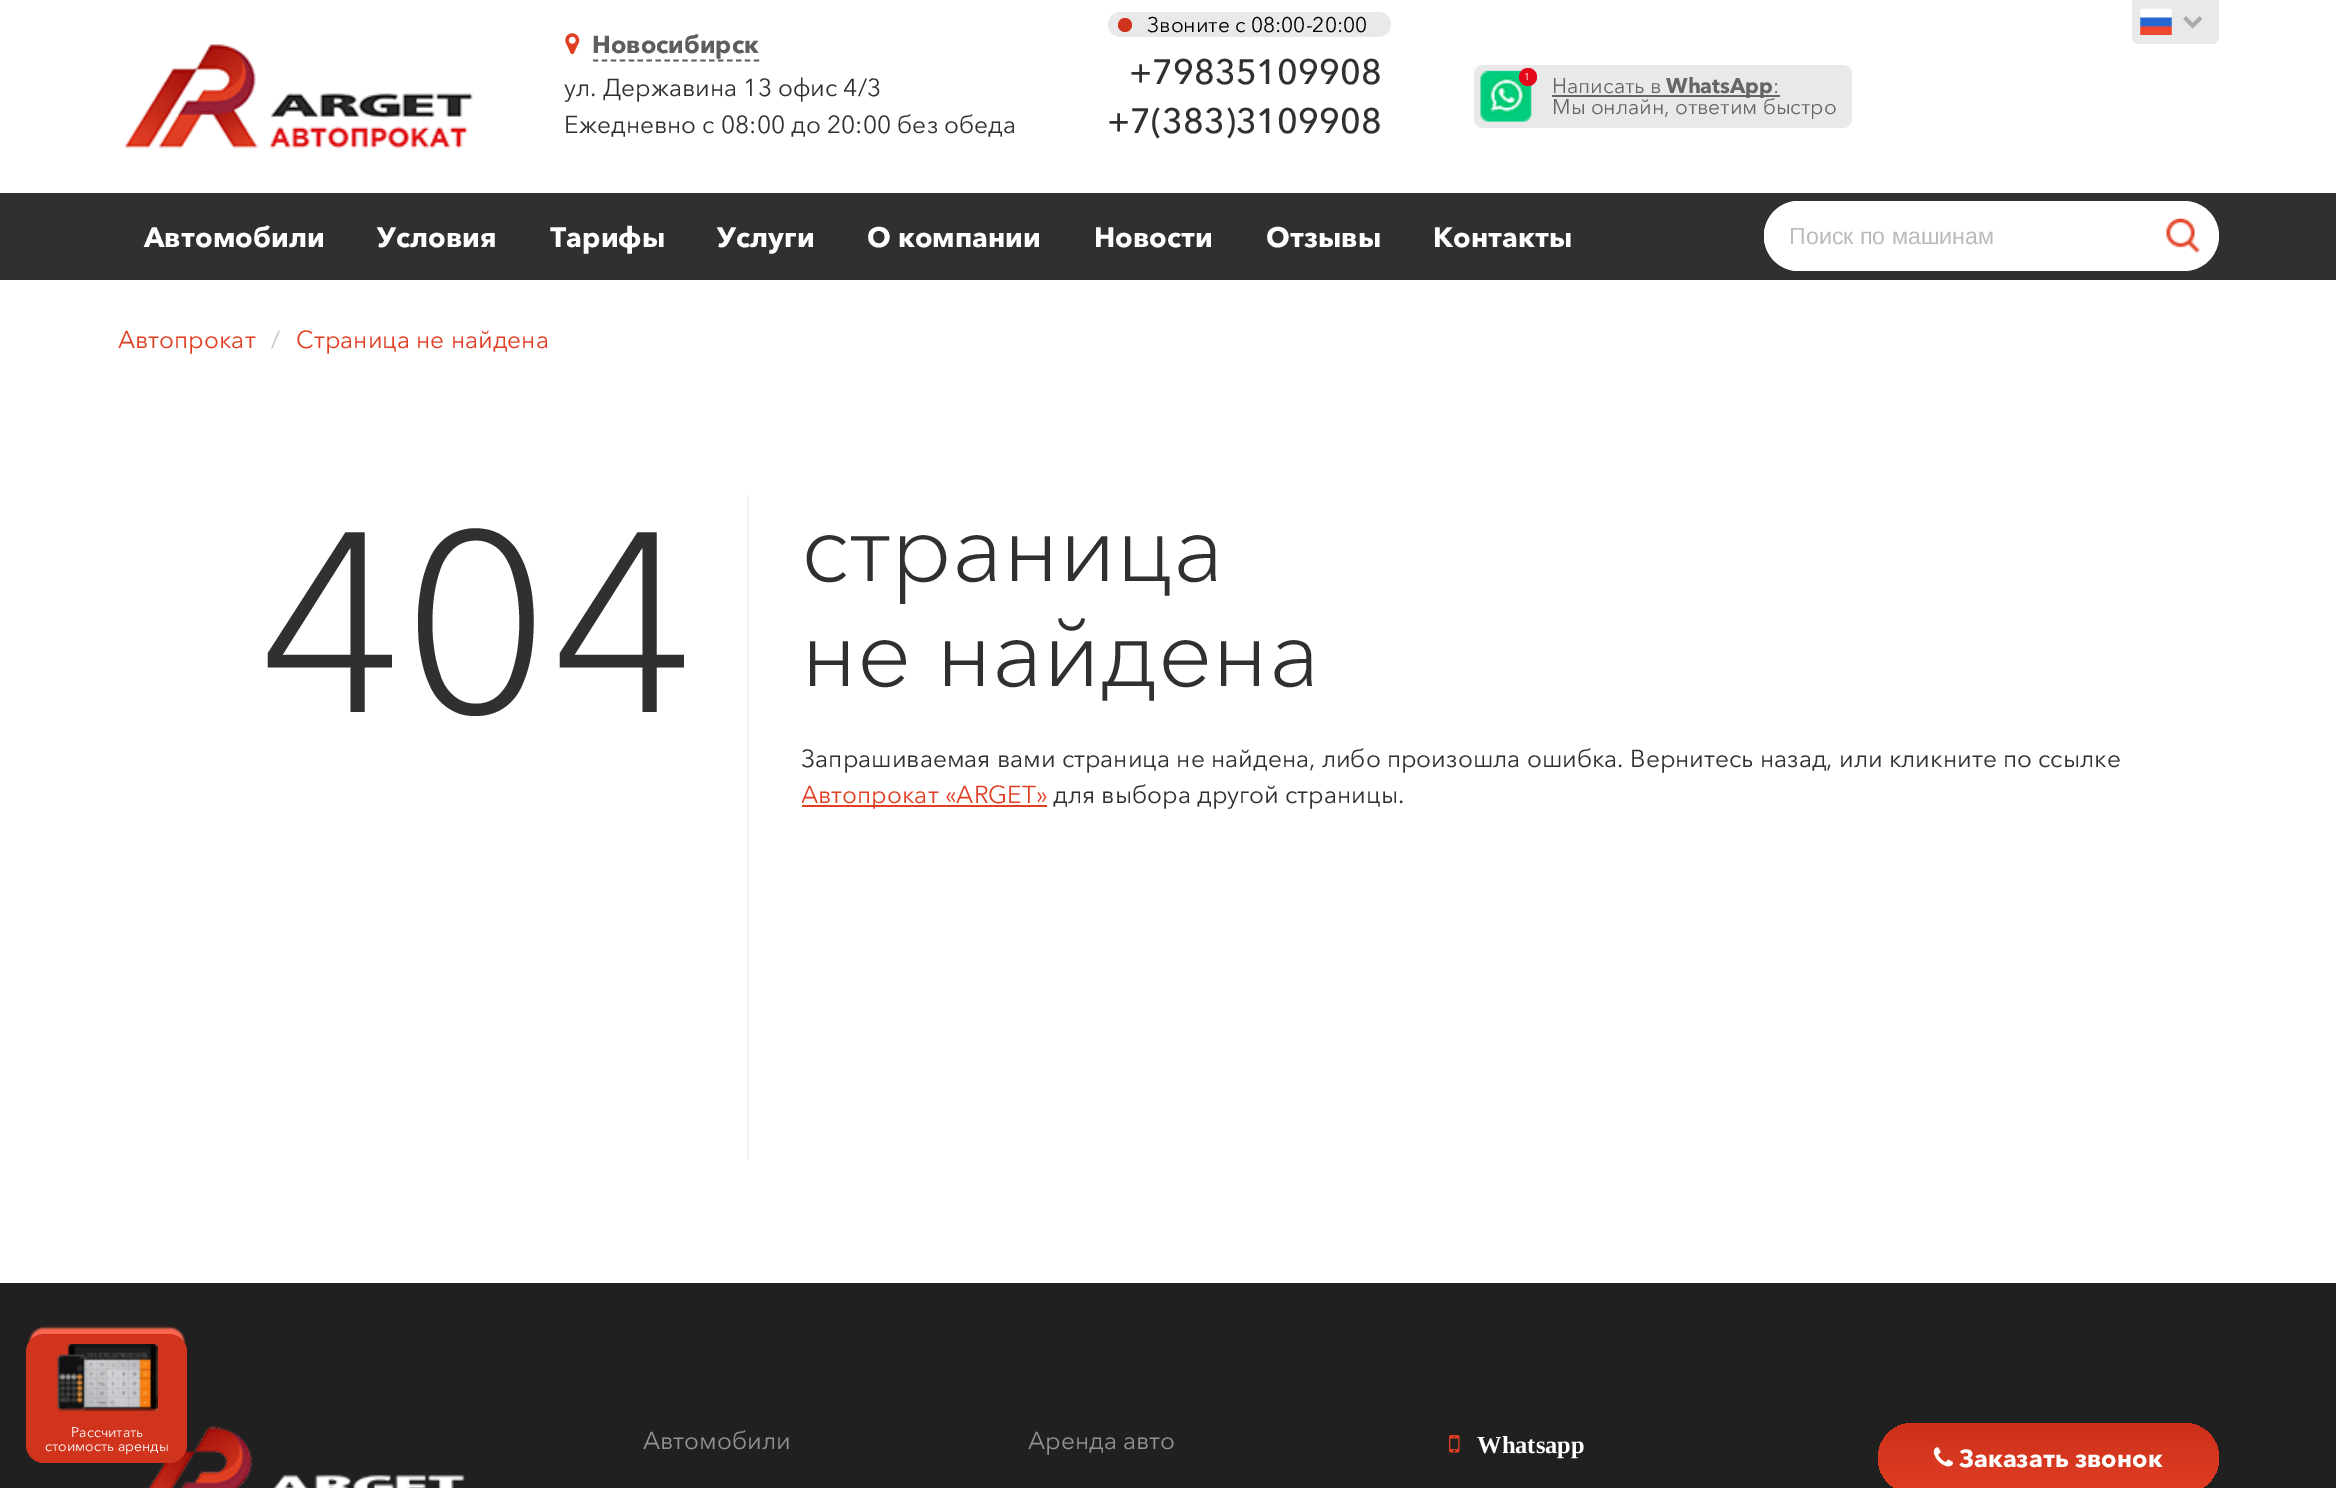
%!PS
<< /PageSize [2336 1488] /PageUsesTransparency true >> setpagedevice
/mt/moveto load def
/li/lineto load def
/ct/curveto load def
/cp/closepath load def
/fl/fill load def
/st/stroke load def
/gs/gsave load def
/gr/grestore load def
/lw/setlinewidth load def
/co { dup -16 bitshift 255 div exch dup -8 bitshift 255 and 255 div exch 255 and 255 div setrgbcolor } def
/fn { [ exch dup neg 0 0 3 -1 roll 0 0 ] selectfont } def
/tx { co fn moveto show } def
/bx { co rectfill } def
/al { dup .setfillconstantalpha .setstrokeconstantalpha } def
/ci { newpath 0 360 arc closepath } def
/rr { 5 dict begin { /r /h /w /y /x } { exch def } forall
  x r add y moveto x w add y 2 copy h add r arct x w add y h add x 1 index r arct
  x y h add x y r arct x y 2 copy exch w add exch r arct closepath end } def
/sh { 12 dict begin { /a /b /q /h /w /y /x } { exch def } forall gsave /was 0 def
  9 -2 -9 { dup b mul 4 div /e exch def 1 sub .425 mul 2.718 exch exp 1 add a .99 .min exch div /now exch def
    1 1 now sub 1 was sub div sub al /was now def
    w h .min e 2 mul add 0 gt { x e sub y e sub w e 2 mul add h e 2 mul add
      q e add b .6 mul add w h .min 2 div e add .min 0 .max rr fill } if } for grestore end } def
/im { 5 dict begin { /h /w /y /x /name } { exch def } forall
  gsave x y translate w h scale
  w h 8 [w 0 0 h 0 0] name (r) file false 3 colorimage grestore end } def
0 .pushpdf14devicefilter
0 1488 translate 1 -1 scale
4 setmiterlimit
0 0 2336 1488 16#FFFFFF bx
(media/1.raw) 124 44 349 105 im
(media/2.raw) 565 33 15 22 im
16#5E5E5E co
1.8 lw
[5.25 3.69] 0 setdash
593 60.5 mt 759.5 60.5 li st
16#E9E9E9 co
1108 12 283 25 12.5 rr fl
16#D1341D co
1125 25 7 ci fl
16#E9E9E9 co
1474 65 378 63 9 rr fl
(media/3.raw) 1480 70 52 52 im
16#E30719 co
1528 77 9 ci fl
1552 95 228 2 16#666666 bx
16#E9E9E9 co
2132 0 mt 2219 0 li 2219 37 li 2219 41 2216 44 2212 44 ct 2139 44 li 2135 44 2132 41 2132 37 ct cp fl
(media/4.raw) 2140 8 32 27 im
(media/5.raw) 2183 16 19 13 im
0 193 2336 87 16#303030 bx
16#FFFFFF co
1764 201 455 70 35 rr fl
1799 201 mt 2149 201 li 2149 271 li 1799 271 li 1779.5 271 1764 255.5 1764 236 ct 1764 216.5 1779.5 201 1799 201 ct cp fl
(media/6.raw) 2166 218 34 35 im
747 495 2 665 16#F1F1F1 bx
802 805 245 2 16#E03F23 bx
0 1283 2336 205 16#202020 bx
(media/8.raw) 148 1426 317 62 im
16#FF6953 co
30 1328 154 123 14 1 1 sh
16#D1341D co
26 1334 161 129 18 rr fl
(media/7.raw) 57 1344 101 67 im
(media/9.raw) 1449 1435 11 18 im
gs 1878 1423 341 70 35 rr clip newpath
<< /ShadingType 2 /ColorSpace /DeviceRGB /Coords [2048 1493 2048 1423] /Extend [true true] /Function << /FunctionType 2 /Domain [0 1] /C0 [.875 .243 .137] /C1 [.804 .188 .106] /N 1 >> >> shfill gr
(media/10.raw) 1933 1447 20 20 im
(Новосибирск) 592 53 /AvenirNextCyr-Bold 24.5 16#5E5E5E tx
(Звоните с 08:00-20:00) 1147 32 /AvenirNextCyr-Regular 21 16#000000 tx
(+79835109908) 1129 84 /AvenirNextCyr-Medium 35 16#303030 tx
(+7\(383\)3109908) 1107 133 /AvenirNextCyr-Medium 35 16#303030 tx
(1) 1524 80 /AvenirNextCyr-Regular 10 16#FFFFFF tx
(Написать в) 1552 93 /AvenirNextCyr-Regular 21 16#666666 tx
(WhatsApp) 1666 93 /AvenirNextCyr-Bold 21 16#666666 tx
(:) 1773 93 /AvenirNextCyr-Regular 21 16#666666 tx
(Мы онлайн, ответим быстро) 1552 114 /AvenirNextCyr-Regular 21 16#666666 tx
(ул. Державина 13 офис 4/3) 564 96 /AvenirNextCyr-Regular 24.5 16#303030 tx
(Ежедневно с 08:00 до 20:00 без обеда) 564 133 /AvenirNextCyr-Regular 24.5 16#303030 tx
(Автомобили) 144 247 /AvenirNextCyr-Bold 28 16#FFFFFF tx
(Условия) 377 247 /AvenirNextCyr-Bold 28 16#FFFFFF tx
(Тарифы) 550 247 /AvenirNextCyr-Bold 28 16#FFFFFF tx
(Услуги) 717 247 /AvenirNextCyr-Bold 28 16#FFFFFF tx
(О компании) 867 247 /AvenirNextCyr-Bold 28 16#FFFFFF tx
(Новости) 1094 247 /AvenirNextCyr-Bold 28 16#FFFFFF tx
(Отзывы) 1266 247 /AvenirNextCyr-Bold 28 16#FFFFFF tx
(Контакты) 1433 247 /AvenirNextCyr-Bold 28 16#FFFFFF tx
(Поиск по машинам) 1789 244 /LiberationSans-Regular 23.25 16#BBBBBB tx
(Автопрокат) 118 348 /AvenirNextCyr-Regular 24.5 16#E03F23 tx
(/) 271 348 /AvenirNextCyr-Regular 24.5 16#C6C6C6 tx
(Страница не найдена) 296 348 /AvenirNextCyr-Regular 24.5 16#E03F23 tx
(404) 257 712 /AvenirNextCyr-Light 254 16#303030 tx
(страница) 801 581 /AvenirNextCyr-Light 96.25 16#303030 tx
(не найдена) 801 686 /AvenirNextCyr-Light 96.25 16#303030 tx
(Запрашиваемая вами страница не найдена, либо произошла ошибка. Вернитесь назад, или кликните по ссылке) 801 767 /AvenirNextCyr-Regular 24.5 16#303030 tx
gs
802 740 1417 102 rectclip
(Автопрокат «ARGET») 801 803 /AvenirNextCyr-Regular 24.5 16#E03F23 tx
gr
(для выбора другой страницы.) 1053 803 /AvenirNextCyr-Regular 24.5 16#303030 tx
(Рассчитать) 71 1437 /AvenirNextCyr-Regular 14 16#FFFFFF tx
(стоимость аренды) 45 1451 /AvenirNextCyr-Regular 14 16#FFFFFF tx
(Автомобили) 643 1449 /AvenirNextCyr-Regular 24.5 16#919191 tx
(Аренда авто) 1028 1449 /AvenirNextCyr-Regular 24.5 16#919191 tx
(Whatsapp) 1477 1453 /LiberationSerif-Bold 24.5 16#FFFFFF tx
(Заказать звонок) 1959 1467 /AvenirNextCyr-Bold 24.5 16#FFFFFF tx
.poppdf14devicefilter showpage
